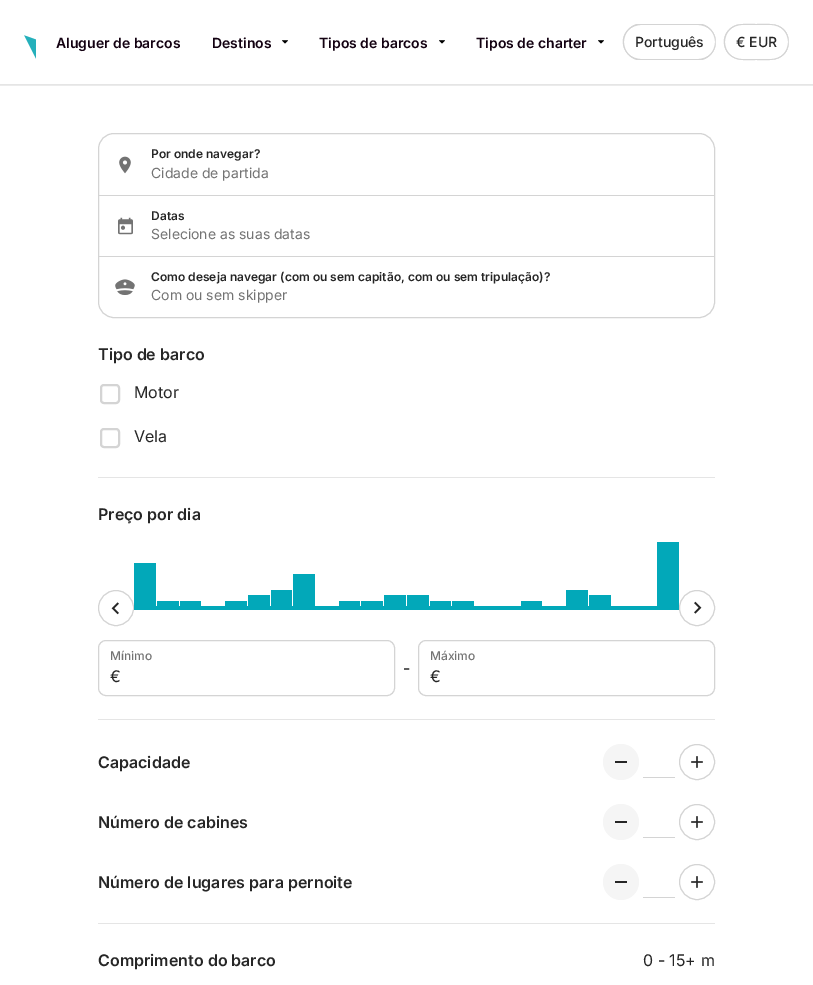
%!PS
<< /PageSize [813 985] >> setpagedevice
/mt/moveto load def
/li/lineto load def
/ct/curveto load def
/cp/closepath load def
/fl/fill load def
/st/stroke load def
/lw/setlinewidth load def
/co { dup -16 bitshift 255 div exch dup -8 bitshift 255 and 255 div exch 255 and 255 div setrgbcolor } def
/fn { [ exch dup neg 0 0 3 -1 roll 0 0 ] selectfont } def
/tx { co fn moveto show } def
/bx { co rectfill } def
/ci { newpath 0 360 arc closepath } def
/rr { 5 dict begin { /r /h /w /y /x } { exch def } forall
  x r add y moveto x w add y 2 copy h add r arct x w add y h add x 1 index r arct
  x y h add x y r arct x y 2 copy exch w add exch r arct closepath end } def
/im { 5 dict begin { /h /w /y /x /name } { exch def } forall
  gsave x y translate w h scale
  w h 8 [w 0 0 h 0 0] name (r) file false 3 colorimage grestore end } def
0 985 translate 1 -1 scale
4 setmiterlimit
0 0 813 985 16#FFFFFF bx
0 85 813 1 16#EBEBEB bx
0 84 813 1 16#E5E5E5 bx
(media/1.raw) 24 35 12 24 im
(media/2.raw) 282 40 6 4 im
(media/2.raw) 439 40 6 4 im
(media/2.raw) 598 40 6 4 im
16#D4D4D4 co
623 42 mt 623 50 629 58 637 60 ct 650 60 li 702 60 li 710 58 716 50 716 42 ct 716 51 708 59 698 59 ct 641 59 li 631 59 623 51 623 42 ct cp fl
641 25 mt 698 25 li 708 25 716 33 716 42 ct 716 34 710 26 702 24 ct 688 24 li 637 24 li 629 26 623 34 623 42 ct 623 33 631 25 641 25 ct cp fl
697 60 mt 722 60 722 24 697 24 ct 707 24 715 32 715 42 ct 715 52 707 60 697 60 ct cp fl
641 24 mt 637.5 24 634 25 631 27 ct 615.5 37.5 623.5 60 642 60 ct 632 60 624 52 624 42 ct 624 32 632 24 642 24 ct cp fl
724 42 mt 724 45 725 49 727 52 ct 734 62 746 60 756 60 ct 767 60 779 62 786 52 ct 788 49 789 45 789 42 ct 789 51 781 59 771 59 ct 742 59 li 732 59 724 51 724 42 ct cp fl
742 25 mt 771 25 li 781 25 789 33 789 42 ct 789 39 788 35 786 32 ct 779 22 767 24 756 24 ct 746 24 734 22 727 32 ct 725 35 724 39 724 42 ct 724 33 732 25 742 25 ct cp fl
770 60 mt 795 60 795 24 770 24 ct 780 24 788 32 788 42 ct 788 52 780 60 770 60 ct cp fl
742 24 mt 738.5 24 735 25 732 27 ct 716.5 37.5 724.5 60 743 60 ct 733 60 725 52 725 42 ct 725 32 733 24 743 24 ct cp fl
98.5 133.5 616 184 15.5 rr st
99 195 615 1 16#D4D4D4 bx
(media/3.raw) 119 156 12 18 im
99 256 615 1 16#D4D4D4 bx
(media/4.raw) 118 217 15 18 im
(media/5.raw) 115 279 20 16 im
98 477 617 1 16#E5E5E5 bx
16#D4D4D4 co
2 lw
101 385 18 18 3 rr st
101 429 18 18 3 rr st
98 719 617 1 16#E5E5E5 bx
134 563 22 43 16#02A8B9 bx
157 601 22 5 16#02A8B9 bx
180 601 21 5 16#02A8B9 bx
225 601 22 5 16#02A8B9 bx
248 595 22 11 16#02A8B9 bx
271 590 21 16 16#02A8B9 bx
293 574 22 32 16#02A8B9 bx
339 601 21 5 16#02A8B9 bx
361 601 22 5 16#02A8B9 bx
384 595 22 11 16#02A8B9 bx
407 595 22 11 16#02A8B9 bx
430 601 21 5 16#02A8B9 bx
452 601 22 5 16#02A8B9 bx
521 601 21 5 16#02A8B9 bx
566 590 22 16 16#02A8B9 bx
589 595 22 11 16#02A8B9 bx
657 542 22 64 16#02A8B9 bx
16#D4D4D4 co
1 lw
116 608 17.5 ci st
(media/6.raw) 111 602 8 13 im
134 606 545 4 16#02A8B9 bx
16#D4D4D4 co
697 608 17.5 ci st
(media/7.raw) 694 601 8 13 im
98.5 640.5 296 55 7.5 rr st
418.5 640.5 296 55 7.5 rr st
98 923 617 1 16#E5E5E5 bx
16#F5F5F5 co
621 762 18 ci fl
615 761 12 2 16#262626 bx
643 777 32 1 16#D4D4D4 bx
697 762 17.5 ci st
(media/8.raw) 691 756 12 12 im
16#F5F5F5 co
621 822 18 ci fl
615 821 12 2 16#262626 bx
643 837 32 1 16#D4D4D4 bx
697 822 17.5 ci st
(media/8.raw) 691 816 12 12 im
16#F5F5F5 co
621 882 18 ci fl
615 881 12 2 16#262626 bx
643 897 32 1 16#D4D4D4 bx
697 882 17.5 ci st
(media/8.raw) 691 876 12 12 im
(Aluguer de barcos) 56 48 /Inter-SemiBold 14 16#130111 tx
(Destinos) 212 48 /Inter-SemiBold 14 16#130111 tx
(Tipos de barcos) 319 48 /Inter-SemiBold 14 16#130111 tx
(Tipos de charter) 476 48 /Inter-SemiBold 14 16#130111 tx
(Português) 635 47 /Inter-Medium 14 16#262626 tx
(€ EUR) 736 47 /Inter-Medium 14 16#262626 tx
(Por onde navegar?) 151 158 /Inter-SemiBold 12 16#262626 tx
(Cidade de partida) 151 178 /Inter-Regular 14 16#737373 tx
(Datas) 151 220 /Inter-SemiBold 12 16#262626 tx
(Selecione as suas datas) 151 239 /Inter-Regular 14 16#737373 tx
(Como deseja navegar \(com ou sem capitão, com ou sem tripulação\)?) 151 281 /Inter-SemiBold 12 16#262626 tx
(Com ou sem skipper) 151 300 /Inter-Regular 14 16#737373 tx
(Tipo de barco) 98 360 /Inter-SemiBold 16 16#262626 tx
(Motor) 134 398 /Inter-Regular 16 16#262626 tx
(Vela) 134 442 /Inter-Regular 16 16#262626 tx
(Preço por dia) 98 520 /Inter-SemiBold 16 16#262626 tx
(Mínimo) 110 660 /Inter-Medium 12 16#737373 tx
(€) 110 682 /Inter-Regular 16 16#262626 tx
(-) 403 674 /Inter-Regular 16 16#262626 tx
(Máximo) 430 660 /Inter-Medium 12 16#737373 tx
(€) 430 682 /Inter-Regular 16 16#262626 tx
(Capacidade) 98 768 /Inter-SemiBold 16 16#262626 tx
(Número de cabines) 98 828 /Inter-SemiBold 16 16#262626 tx
(Número de lugares para pernoite) 98 888 /Inter-SemiBold 16 16#262626 tx
(Comprimento do barco) 98 966 /Inter-SemiBold 16 16#262626 tx
(0 - 15+ m) 643 966 /Inter-Regular 16 16#262626 tx
showpage
